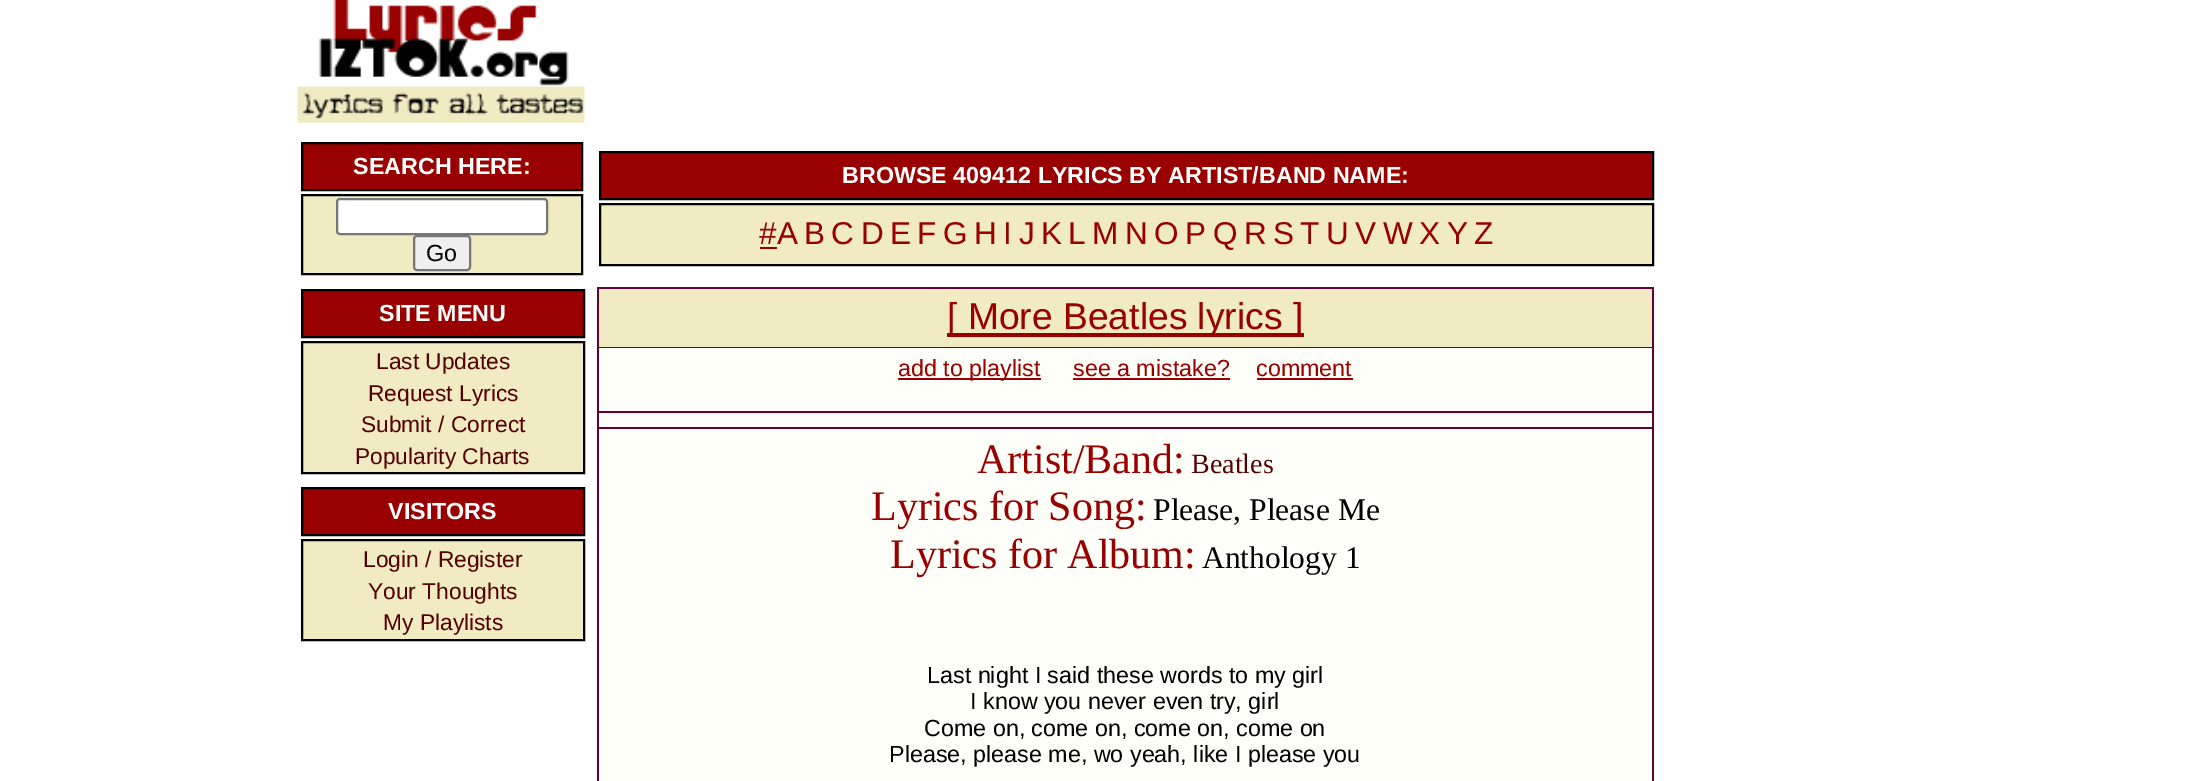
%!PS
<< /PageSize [2190 781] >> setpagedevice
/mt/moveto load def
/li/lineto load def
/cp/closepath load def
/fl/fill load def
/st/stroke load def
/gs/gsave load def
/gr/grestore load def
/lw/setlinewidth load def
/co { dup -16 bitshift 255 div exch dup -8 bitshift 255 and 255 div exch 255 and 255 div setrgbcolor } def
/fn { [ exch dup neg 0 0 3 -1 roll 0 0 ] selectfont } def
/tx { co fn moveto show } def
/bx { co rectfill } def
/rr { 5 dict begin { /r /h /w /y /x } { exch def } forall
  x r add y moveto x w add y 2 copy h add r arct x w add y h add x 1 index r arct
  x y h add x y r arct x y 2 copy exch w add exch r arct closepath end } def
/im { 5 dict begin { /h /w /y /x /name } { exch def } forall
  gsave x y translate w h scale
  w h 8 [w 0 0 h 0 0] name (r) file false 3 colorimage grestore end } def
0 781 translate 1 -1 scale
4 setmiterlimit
0 0 2190 781 16#FFFFFF bx
(media/1.raw) 297 0 288 123 im
16#990000 co
302 143 mt 582 143 li 582 190 li 302 190 li cp gs fl gr
16#000000 co
2 lw
st
16#F0EBC3 co
302 195 mt 582 195 li 582 274 li 302 274 li cp gs fl gr
16#000000 co
st
16#FFFFFF co
337 199 210 35 3 rr gs fl gr
16#767676 co
st
16#EFEFEF co
414 236 56 34 3 rr gs fl gr
16#767676 co
st
16#990000 co
600 152 mt 1653 152 li 1653 199 li 600 199 li cp gs fl gr
16#000000 co
st
16#F0EBC3 co
600 204 mt 1653 204 li 1653 265 li 600 265 li cp gs fl gr
16#000000 co
st
760 247 17 2 16#990000 bx
302 290 mt 584 290 li 584 337 li 302 337 li cp gs fl gr
16#000000 co
st
16#F0EBC3 co
302 342 mt 584 342 li 584 473 li 302 473 li cp gs fl gr
16#000000 co
st
16#990000 co
302 488 mt 584 488 li 584 535 li 302 535 li cp gs fl gr
16#000000 co
st
16#F0EBC3 co
302 540 mt 584 540 li 584 640 li 302 640 li cp gs fl gr
16#000000 co
st
597 287 1057 494 16#660033 bx
599 289 1053 58 16#F0EBC3 bx
947 333 357 4 16#990000 bx
599 348 1053 63 16#FFFFF9 bx
898 378 143 2 16#990000 bx
1073 378 157 2 16#990000 bx
1257 378 96 2 16#990000 bx
599 413 1053 14 16#FFFFF9 bx
599 429 1053 352 16#FFFFF9 bx
(SEARCH HERE:) 353 174 /LiberationSans-Bold 23.3 16#FFFFFF tx
(Go) 426 261 /LiberationSans-Regular 23.3 16#000000 tx
(BROWSE 409412 LYRICS BY ARTIST/BAND NAME:) 842 183 /LiberationSans-Bold 23.3 16#FFFFFF tx
(#A) 759 244 /LiberationSans-Regular 31.5 16#990000 tx
(B) 804 244 /LiberationSans-Regular 31.5 16#990000 tx
(C) 831 244 /LiberationSans-Regular 31.5 16#990000 tx
(D) 861 244 /LiberationSans-Regular 31.5 16#990000 tx
(E) 890 244 /LiberationSans-Regular 31.5 16#990000 tx
(F) 917 244 /LiberationSans-Regular 31.5 16#990000 tx
(G) 943 244 /LiberationSans-Regular 31.5 16#990000 tx
(H) 974 244 /LiberationSans-Regular 31.5 16#990000 tx
(I) 1003 244 /LiberationSans-Regular 31.5 16#990000 tx
(J) 1019 244 /LiberationSans-Regular 31.5 16#990000 tx
(K) 1041 244 /LiberationSans-Regular 31.5 16#990000 tx
(L) 1068 244 /LiberationSans-Regular 31.5 16#990000 tx
(M) 1092 244 /LiberationSans-Regular 31.5 16#990000 tx
(N) 1125 244 /LiberationSans-Regular 31.5 16#990000 tx
(O) 1154 244 /LiberationSans-Regular 31.5 16#990000 tx
(P) 1185 244 /LiberationSans-Regular 31.5 16#990000 tx
(Q) 1213 244 /LiberationSans-Regular 31.5 16#990000 tx
(R) 1244 244 /LiberationSans-Regular 31.5 16#990000 tx
(S) 1273 244 /LiberationSans-Regular 31.5 16#990000 tx
(T) 1300 244 /LiberationSans-Regular 31.5 16#990000 tx
(U) 1326 244 /LiberationSans-Regular 31.5 16#990000 tx
(V) 1355 244 /LiberationSans-Regular 31.5 16#990000 tx
(W) 1383 244 /LiberationSans-Regular 31.5 16#990000 tx
(X) 1419 244 /LiberationSans-Regular 31.5 16#990000 tx
(Y) 1447 244 /LiberationSans-Regular 31.5 16#990000 tx
(Z) 1474 244 /LiberationSans-Regular 31.5 16#990000 tx
(SITE MENU) 379 321 /LiberationSans-Bold 23.3 16#FFFFFF tx
(Last Updates) 376 369 /LiberationSans-Regular 22.75 16#550000 tx
(Request Lyrics) 368 401 /LiberationSans-Regular 22.75 16#550000 tx
(Submit / Correct) 361 432 /LiberationSans-Regular 22.75 16#550000 tx
(Popularity Charts) 355 464 /LiberationSans-Regular 22.75 16#550000 tx
(VISITORS) 388 519 /LiberationSans-Bold 23.3 16#FFFFFF tx
(Login / Register) 363 567 /LiberationSans-Regular 22.75 16#550000 tx
(Your Thoughts) 368 599 /LiberationSans-Regular 22.75 16#550000 tx
(My Playlists) 383 630 /LiberationSans-Regular 22.75 16#550000 tx
([ More Beatles lyrics ]) 947 329 /LiberationSans-Regular 37.25 16#990000 tx
(add to playlist) 898 376 /LiberationSans-Regular 23.3 16#990000 tx
(see a mistake?) 1073 376 /LiberationSans-Regular 23.3 16#990000 tx
(comment) 1256 376 /LiberationSans-Regular 23.3 16#990000 tx
(Artist/Band:) 977 473 /LiberationSerif-Regular 42 16#990000 tx
(Beatles) 1191 473 /LiberationSerif-Regular 28 16#550000 tx
(Lyrics for Song:) 871 520 /LiberationSerif-Regular 42 16#990000 tx
(Please, Please Me) 1153 520 /LiberationSerif-Regular 31.5 16#000000 tx
(Lyrics for Album:) 890 568 /LiberationSerif-Regular 42 16#990000 tx
(Anthology 1) 1202 568 /LiberationSerif-Regular 31.5 16#000000 tx
(Last night I said these words to my girl) 927 683 /LiberationSans-Regular 23.3 16#000000 tx
(I know you never even try, girl) 970 709 /LiberationSans-Regular 23.3 16#000000 tx
(Come on, come on, come on, come on) 924 736 /LiberationSans-Regular 23.3 16#000000 tx
(Please, please me, wo yeah, like I please you) 889 762 /LiberationSans-Regular 23.3 16#000000 tx
showpage
